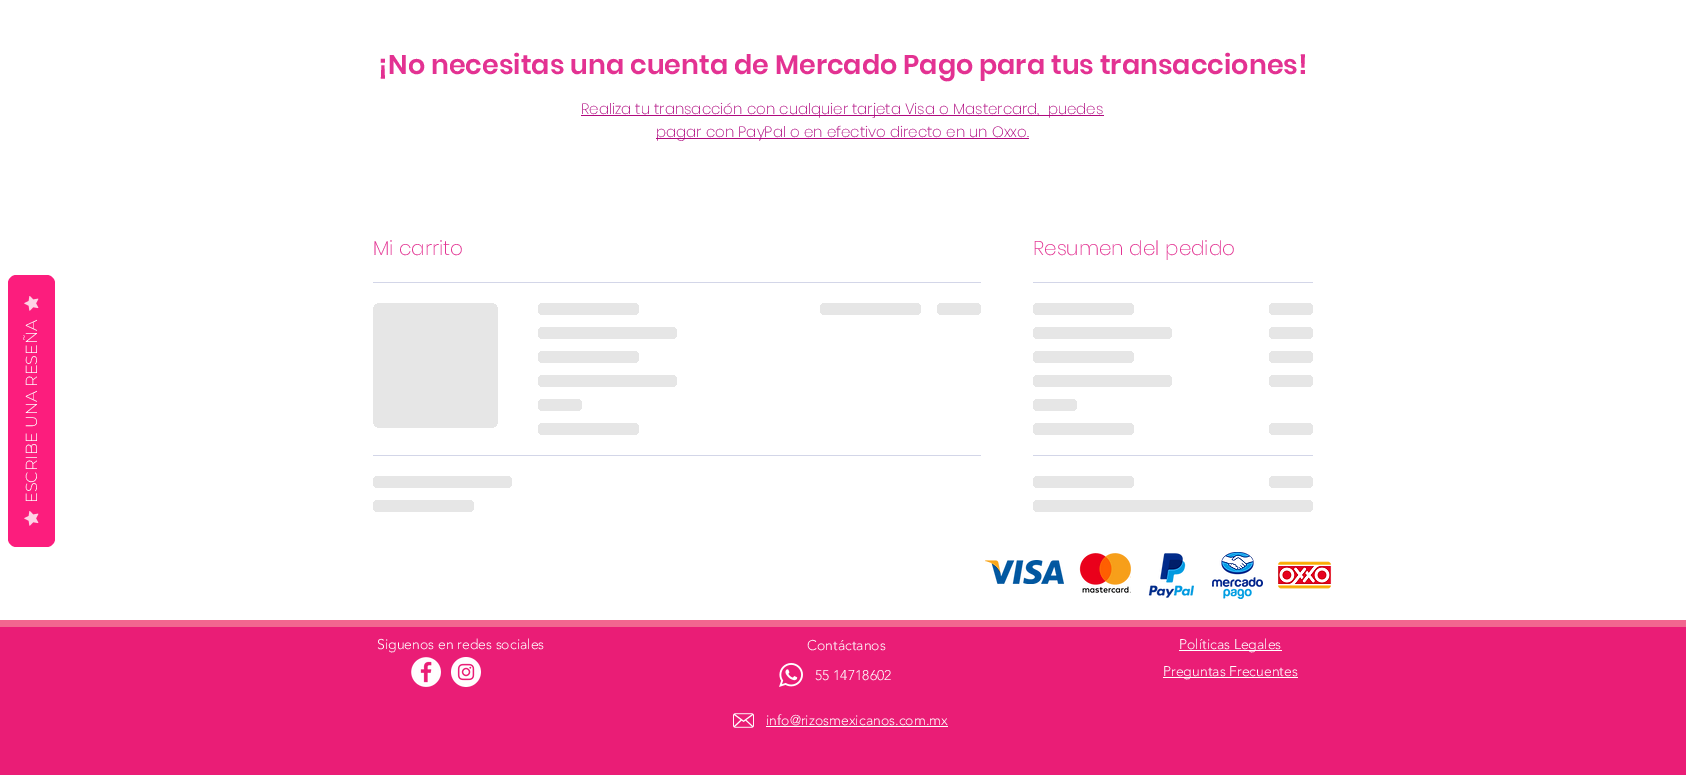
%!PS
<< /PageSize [1686 775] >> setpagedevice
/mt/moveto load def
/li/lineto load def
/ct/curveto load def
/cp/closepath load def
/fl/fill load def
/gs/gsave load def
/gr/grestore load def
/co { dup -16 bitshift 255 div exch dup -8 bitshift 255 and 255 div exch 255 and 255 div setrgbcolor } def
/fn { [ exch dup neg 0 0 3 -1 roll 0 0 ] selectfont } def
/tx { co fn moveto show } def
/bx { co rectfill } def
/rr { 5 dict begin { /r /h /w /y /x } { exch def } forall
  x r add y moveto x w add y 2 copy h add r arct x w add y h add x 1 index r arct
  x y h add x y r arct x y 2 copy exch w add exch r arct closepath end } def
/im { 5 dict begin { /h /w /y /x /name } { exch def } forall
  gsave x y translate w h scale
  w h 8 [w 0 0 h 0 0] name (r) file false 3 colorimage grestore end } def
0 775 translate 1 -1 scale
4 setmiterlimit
0 0 1686 775 16#FFFFFF bx
16#FC1D7D co
8 539 mt 8 283 li 8 279 12 275 16 275 ct 47 275 li 51 275 55 279 55 283 ct 55 539 li 55 543 51 547 47 547 ct 16 547 li 12 547 8 543 8 539 ct cp fl
(media/1.raw) 24 296 15 15 im
(media/1.raw) 24 511 15 15 im
581 115 523 1 16#B0097F bx
656 138 373 1 16#B0097F bx
373 282 608 1 16#D3D6E8 bx
gs 373 303 125 125 8 rr clip newpath
<< /ShadingType 2 /ColorSpace /DeviceRGB /Coords [373 366 873 366] /Extend [true true] /Function << /FunctionType 3 /Domain [0 1] /Functions [<< /FunctionType 2 /Domain [0 1] /C0 [.902 .902 .902] /C1 [.902 .902 .902] /N 1 >> << /FunctionType 2 /Domain [0 1] /C0 [.902 .902 .902] /C1 [.8 .8 .8] /N 1 >> << /FunctionType 2 /Domain [0 1] /C0 [.8 .8 .8] /C1 [.902 .902 .902] /N 1 >> << /FunctionType 2 /Domain [0 1] /C0 [.902 .902 .902] /C1 [.902 .902 .902] /N 1 >>] /Bounds [.25 .37 .63] /Encode [0 1 0 1 0 1 0 1] >> >> shfill gr
gs 538 303 101 12 6 rr clip newpath
<< /ShadingType 2 /ColorSpace /DeviceRGB /Coords [538 309 942 309] /Extend [true true] /Function << /FunctionType 3 /Domain [0 1] /Functions [<< /FunctionType 2 /Domain [0 1] /C0 [.902 .902 .902] /C1 [.902 .902 .902] /N 1 >> << /FunctionType 2 /Domain [0 1] /C0 [.902 .902 .902] /C1 [.8 .8 .8] /N 1 >> << /FunctionType 2 /Domain [0 1] /C0 [.8 .8 .8] /C1 [.902 .902 .902] /N 1 >> << /FunctionType 2 /Domain [0 1] /C0 [.902 .902 .902] /C1 [.902 .902 .902] /N 1 >>] /Bounds [.25 .37 .63] /Encode [0 1 0 1 0 1 0 1] >> >> shfill gr
gs 538 327 139 12 6 rr clip newpath
<< /ShadingType 2 /ColorSpace /DeviceRGB /Coords [538 333 1094 333] /Extend [true true] /Function << /FunctionType 3 /Domain [0 1] /Functions [<< /FunctionType 2 /Domain [0 1] /C0 [.902 .902 .902] /C1 [.902 .902 .902] /N 1 >> << /FunctionType 2 /Domain [0 1] /C0 [.902 .902 .902] /C1 [.8 .8 .8] /N 1 >> << /FunctionType 2 /Domain [0 1] /C0 [.8 .8 .8] /C1 [.902 .902 .902] /N 1 >> << /FunctionType 2 /Domain [0 1] /C0 [.902 .902 .902] /C1 [.902 .902 .902] /N 1 >>] /Bounds [.25 .37 .63] /Encode [0 1 0 1 0 1 0 1] >> >> shfill gr
gs 538 351 101 12 6 rr clip newpath
<< /ShadingType 2 /ColorSpace /DeviceRGB /Coords [538 357 942 357] /Extend [true true] /Function << /FunctionType 3 /Domain [0 1] /Functions [<< /FunctionType 2 /Domain [0 1] /C0 [.902 .902 .902] /C1 [.902 .902 .902] /N 1 >> << /FunctionType 2 /Domain [0 1] /C0 [.902 .902 .902] /C1 [.8 .8 .8] /N 1 >> << /FunctionType 2 /Domain [0 1] /C0 [.8 .8 .8] /C1 [.902 .902 .902] /N 1 >> << /FunctionType 2 /Domain [0 1] /C0 [.902 .902 .902] /C1 [.902 .902 .902] /N 1 >>] /Bounds [.25 .37 .63] /Encode [0 1 0 1 0 1 0 1] >> >> shfill gr
gs 538 375 139 12 6 rr clip newpath
<< /ShadingType 2 /ColorSpace /DeviceRGB /Coords [538 381 1094 381] /Extend [true true] /Function << /FunctionType 3 /Domain [0 1] /Functions [<< /FunctionType 2 /Domain [0 1] /C0 [.902 .902 .902] /C1 [.902 .902 .902] /N 1 >> << /FunctionType 2 /Domain [0 1] /C0 [.902 .902 .902] /C1 [.8 .8 .8] /N 1 >> << /FunctionType 2 /Domain [0 1] /C0 [.8 .8 .8] /C1 [.902 .902 .902] /N 1 >> << /FunctionType 2 /Domain [0 1] /C0 [.902 .902 .902] /C1 [.902 .902 .902] /N 1 >>] /Bounds [.25 .37 .63] /Encode [0 1 0 1 0 1 0 1] >> >> shfill gr
gs 538 399 44 12 6 rr clip newpath
<< /ShadingType 2 /ColorSpace /DeviceRGB /Coords [538 405 714 405] /Extend [true true] /Function << /FunctionType 3 /Domain [0 1] /Functions [<< /FunctionType 2 /Domain [0 1] /C0 [.902 .902 .902] /C1 [.902 .902 .902] /N 1 >> << /FunctionType 2 /Domain [0 1] /C0 [.902 .902 .902] /C1 [.8 .8 .8] /N 1 >> << /FunctionType 2 /Domain [0 1] /C0 [.8 .8 .8] /C1 [.902 .902 .902] /N 1 >> << /FunctionType 2 /Domain [0 1] /C0 [.902 .902 .902] /C1 [.902 .902 .902] /N 1 >>] /Bounds [.25 .37 .63] /Encode [0 1 0 1 0 1 0 1] >> >> shfill gr
gs 538 423 101 12 6 rr clip newpath
<< /ShadingType 2 /ColorSpace /DeviceRGB /Coords [538 429 942 429] /Extend [true true] /Function << /FunctionType 3 /Domain [0 1] /Functions [<< /FunctionType 2 /Domain [0 1] /C0 [.902 .902 .902] /C1 [.902 .902 .902] /N 1 >> << /FunctionType 2 /Domain [0 1] /C0 [.902 .902 .902] /C1 [.8 .8 .8] /N 1 >> << /FunctionType 2 /Domain [0 1] /C0 [.8 .8 .8] /C1 [.902 .902 .902] /N 1 >> << /FunctionType 2 /Domain [0 1] /C0 [.902 .902 .902] /C1 [.902 .902 .902] /N 1 >>] /Bounds [.25 .37 .63] /Encode [0 1 0 1 0 1 0 1] >> >> shfill gr
gs 820 303 101 12 6 rr clip newpath
<< /ShadingType 2 /ColorSpace /DeviceRGB /Coords [820 309 1224 309] /Extend [true true] /Function << /FunctionType 3 /Domain [0 1] /Functions [<< /FunctionType 2 /Domain [0 1] /C0 [.902 .902 .902] /C1 [.902 .902 .902] /N 1 >> << /FunctionType 2 /Domain [0 1] /C0 [.902 .902 .902] /C1 [.8 .8 .8] /N 1 >> << /FunctionType 2 /Domain [0 1] /C0 [.8 .8 .8] /C1 [.902 .902 .902] /N 1 >> << /FunctionType 2 /Domain [0 1] /C0 [.902 .902 .902] /C1 [.902 .902 .902] /N 1 >>] /Bounds [.25 .37 .63] /Encode [0 1 0 1 0 1 0 1] >> >> shfill gr
gs 937 303 44 12 6 rr clip newpath
<< /ShadingType 2 /ColorSpace /DeviceRGB /Coords [937 309 1113 309] /Extend [true true] /Function << /FunctionType 3 /Domain [0 1] /Functions [<< /FunctionType 2 /Domain [0 1] /C0 [.902 .902 .902] /C1 [.902 .902 .902] /N 1 >> << /FunctionType 2 /Domain [0 1] /C0 [.902 .902 .902] /C1 [.8 .8 .8] /N 1 >> << /FunctionType 2 /Domain [0 1] /C0 [.8 .8 .8] /C1 [.902 .902 .902] /N 1 >> << /FunctionType 2 /Domain [0 1] /C0 [.902 .902 .902] /C1 [.902 .902 .902] /N 1 >>] /Bounds [.25 .37 .63] /Encode [0 1 0 1 0 1 0 1] >> >> shfill gr
373 455 608 1 16#D3D6E8 bx
gs 373 476 139 12 6 rr clip newpath
<< /ShadingType 2 /ColorSpace /DeviceRGB /Coords [373 482 929 482] /Extend [true true] /Function << /FunctionType 3 /Domain [0 1] /Functions [<< /FunctionType 2 /Domain [0 1] /C0 [.902 .902 .902] /C1 [.902 .902 .902] /N 1 >> << /FunctionType 2 /Domain [0 1] /C0 [.902 .902 .902] /C1 [.8 .8 .8] /N 1 >> << /FunctionType 2 /Domain [0 1] /C0 [.8 .8 .8] /C1 [.902 .902 .902] /N 1 >> << /FunctionType 2 /Domain [0 1] /C0 [.902 .902 .902] /C1 [.902 .902 .902] /N 1 >>] /Bounds [.25 .37 .63] /Encode [0 1 0 1 0 1 0 1] >> >> shfill gr
gs 373 500 101 12 6 rr clip newpath
<< /ShadingType 2 /ColorSpace /DeviceRGB /Coords [373 506 777 506] /Extend [true true] /Function << /FunctionType 3 /Domain [0 1] /Functions [<< /FunctionType 2 /Domain [0 1] /C0 [.902 .902 .902] /C1 [.902 .902 .902] /N 1 >> << /FunctionType 2 /Domain [0 1] /C0 [.902 .902 .902] /C1 [.8 .8 .8] /N 1 >> << /FunctionType 2 /Domain [0 1] /C0 [.8 .8 .8] /C1 [.902 .902 .902] /N 1 >> << /FunctionType 2 /Domain [0 1] /C0 [.902 .902 .902] /C1 [.902 .902 .902] /N 1 >>] /Bounds [.25 .37 .63] /Encode [0 1 0 1 0 1 0 1] >> >> shfill gr
1033 282 280 1 16#D3D6E8 bx
gs 1033 303 101 12 6 rr clip newpath
<< /ShadingType 2 /ColorSpace /DeviceRGB /Coords [1033 309 1437 309] /Extend [true true] /Function << /FunctionType 3 /Domain [0 1] /Functions [<< /FunctionType 2 /Domain [0 1] /C0 [.902 .902 .902] /C1 [.902 .902 .902] /N 1 >> << /FunctionType 2 /Domain [0 1] /C0 [.902 .902 .902] /C1 [.8 .8 .8] /N 1 >> << /FunctionType 2 /Domain [0 1] /C0 [.8 .8 .8] /C1 [.902 .902 .902] /N 1 >> << /FunctionType 2 /Domain [0 1] /C0 [.902 .902 .902] /C1 [.902 .902 .902] /N 1 >>] /Bounds [.25 .37 .63] /Encode [0 1 0 1 0 1 0 1] >> >> shfill gr
gs 1269 303 44 12 6 rr clip newpath
<< /ShadingType 2 /ColorSpace /DeviceRGB /Coords [1269 309 1445 309] /Extend [true true] /Function << /FunctionType 3 /Domain [0 1] /Functions [<< /FunctionType 2 /Domain [0 1] /C0 [.902 .902 .902] /C1 [.902 .902 .902] /N 1 >> << /FunctionType 2 /Domain [0 1] /C0 [.902 .902 .902] /C1 [.8 .8 .8] /N 1 >> << /FunctionType 2 /Domain [0 1] /C0 [.8 .8 .8] /C1 [.902 .902 .902] /N 1 >> << /FunctionType 2 /Domain [0 1] /C0 [.902 .902 .902] /C1 [.902 .902 .902] /N 1 >>] /Bounds [.25 .37 .63] /Encode [0 1 0 1 0 1 0 1] >> >> shfill gr
gs 1033 327 139 12 6 rr clip newpath
<< /ShadingType 2 /ColorSpace /DeviceRGB /Coords [1033 333 1589 333] /Extend [true true] /Function << /FunctionType 3 /Domain [0 1] /Functions [<< /FunctionType 2 /Domain [0 1] /C0 [.902 .902 .902] /C1 [.902 .902 .902] /N 1 >> << /FunctionType 2 /Domain [0 1] /C0 [.902 .902 .902] /C1 [.8 .8 .8] /N 1 >> << /FunctionType 2 /Domain [0 1] /C0 [.8 .8 .8] /C1 [.902 .902 .902] /N 1 >> << /FunctionType 2 /Domain [0 1] /C0 [.902 .902 .902] /C1 [.902 .902 .902] /N 1 >>] /Bounds [.25 .37 .63] /Encode [0 1 0 1 0 1 0 1] >> >> shfill gr
gs 1269 327 44 12 6 rr clip newpath
<< /ShadingType 2 /ColorSpace /DeviceRGB /Coords [1269 333 1445 333] /Extend [true true] /Function << /FunctionType 3 /Domain [0 1] /Functions [<< /FunctionType 2 /Domain [0 1] /C0 [.902 .902 .902] /C1 [.902 .902 .902] /N 1 >> << /FunctionType 2 /Domain [0 1] /C0 [.902 .902 .902] /C1 [.8 .8 .8] /N 1 >> << /FunctionType 2 /Domain [0 1] /C0 [.8 .8 .8] /C1 [.902 .902 .902] /N 1 >> << /FunctionType 2 /Domain [0 1] /C0 [.902 .902 .902] /C1 [.902 .902 .902] /N 1 >>] /Bounds [.25 .37 .63] /Encode [0 1 0 1 0 1 0 1] >> >> shfill gr
gs 1033 351 101 12 6 rr clip newpath
<< /ShadingType 2 /ColorSpace /DeviceRGB /Coords [1033 357 1437 357] /Extend [true true] /Function << /FunctionType 3 /Domain [0 1] /Functions [<< /FunctionType 2 /Domain [0 1] /C0 [.902 .902 .902] /C1 [.902 .902 .902] /N 1 >> << /FunctionType 2 /Domain [0 1] /C0 [.902 .902 .902] /C1 [.8 .8 .8] /N 1 >> << /FunctionType 2 /Domain [0 1] /C0 [.8 .8 .8] /C1 [.902 .902 .902] /N 1 >> << /FunctionType 2 /Domain [0 1] /C0 [.902 .902 .902] /C1 [.902 .902 .902] /N 1 >>] /Bounds [.25 .37 .63] /Encode [0 1 0 1 0 1 0 1] >> >> shfill gr
gs 1269 351 44 12 6 rr clip newpath
<< /ShadingType 2 /ColorSpace /DeviceRGB /Coords [1269 357 1445 357] /Extend [true true] /Function << /FunctionType 3 /Domain [0 1] /Functions [<< /FunctionType 2 /Domain [0 1] /C0 [.902 .902 .902] /C1 [.902 .902 .902] /N 1 >> << /FunctionType 2 /Domain [0 1] /C0 [.902 .902 .902] /C1 [.8 .8 .8] /N 1 >> << /FunctionType 2 /Domain [0 1] /C0 [.8 .8 .8] /C1 [.902 .902 .902] /N 1 >> << /FunctionType 2 /Domain [0 1] /C0 [.902 .902 .902] /C1 [.902 .902 .902] /N 1 >>] /Bounds [.25 .37 .63] /Encode [0 1 0 1 0 1 0 1] >> >> shfill gr
gs 1033 375 139 12 6 rr clip newpath
<< /ShadingType 2 /ColorSpace /DeviceRGB /Coords [1033 381 1589 381] /Extend [true true] /Function << /FunctionType 3 /Domain [0 1] /Functions [<< /FunctionType 2 /Domain [0 1] /C0 [.902 .902 .902] /C1 [.902 .902 .902] /N 1 >> << /FunctionType 2 /Domain [0 1] /C0 [.902 .902 .902] /C1 [.8 .8 .8] /N 1 >> << /FunctionType 2 /Domain [0 1] /C0 [.8 .8 .8] /C1 [.902 .902 .902] /N 1 >> << /FunctionType 2 /Domain [0 1] /C0 [.902 .902 .902] /C1 [.902 .902 .902] /N 1 >>] /Bounds [.25 .37 .63] /Encode [0 1 0 1 0 1 0 1] >> >> shfill gr
gs 1269 375 44 12 6 rr clip newpath
<< /ShadingType 2 /ColorSpace /DeviceRGB /Coords [1269 381 1445 381] /Extend [true true] /Function << /FunctionType 3 /Domain [0 1] /Functions [<< /FunctionType 2 /Domain [0 1] /C0 [.902 .902 .902] /C1 [.902 .902 .902] /N 1 >> << /FunctionType 2 /Domain [0 1] /C0 [.902 .902 .902] /C1 [.8 .8 .8] /N 1 >> << /FunctionType 2 /Domain [0 1] /C0 [.8 .8 .8] /C1 [.902 .902 .902] /N 1 >> << /FunctionType 2 /Domain [0 1] /C0 [.902 .902 .902] /C1 [.902 .902 .902] /N 1 >>] /Bounds [.25 .37 .63] /Encode [0 1 0 1 0 1 0 1] >> >> shfill gr
gs 1033 399 44 12 6 rr clip newpath
<< /ShadingType 2 /ColorSpace /DeviceRGB /Coords [1033 405 1209 405] /Extend [true true] /Function << /FunctionType 3 /Domain [0 1] /Functions [<< /FunctionType 2 /Domain [0 1] /C0 [.902 .902 .902] /C1 [.902 .902 .902] /N 1 >> << /FunctionType 2 /Domain [0 1] /C0 [.902 .902 .902] /C1 [.8 .8 .8] /N 1 >> << /FunctionType 2 /Domain [0 1] /C0 [.8 .8 .8] /C1 [.902 .902 .902] /N 1 >> << /FunctionType 2 /Domain [0 1] /C0 [.902 .902 .902] /C1 [.902 .902 .902] /N 1 >>] /Bounds [.25 .37 .63] /Encode [0 1 0 1 0 1 0 1] >> >> shfill gr
gs 1033 423 101 12 6 rr clip newpath
<< /ShadingType 2 /ColorSpace /DeviceRGB /Coords [1033 429 1437 429] /Extend [true true] /Function << /FunctionType 3 /Domain [0 1] /Functions [<< /FunctionType 2 /Domain [0 1] /C0 [.902 .902 .902] /C1 [.902 .902 .902] /N 1 >> << /FunctionType 2 /Domain [0 1] /C0 [.902 .902 .902] /C1 [.8 .8 .8] /N 1 >> << /FunctionType 2 /Domain [0 1] /C0 [.8 .8 .8] /C1 [.902 .902 .902] /N 1 >> << /FunctionType 2 /Domain [0 1] /C0 [.902 .902 .902] /C1 [.902 .902 .902] /N 1 >>] /Bounds [.25 .37 .63] /Encode [0 1 0 1 0 1 0 1] >> >> shfill gr
gs 1269 423 44 12 6 rr clip newpath
<< /ShadingType 2 /ColorSpace /DeviceRGB /Coords [1269 429 1445 429] /Extend [true true] /Function << /FunctionType 3 /Domain [0 1] /Functions [<< /FunctionType 2 /Domain [0 1] /C0 [.902 .902 .902] /C1 [.902 .902 .902] /N 1 >> << /FunctionType 2 /Domain [0 1] /C0 [.902 .902 .902] /C1 [.8 .8 .8] /N 1 >> << /FunctionType 2 /Domain [0 1] /C0 [.8 .8 .8] /C1 [.902 .902 .902] /N 1 >> << /FunctionType 2 /Domain [0 1] /C0 [.902 .902 .902] /C1 [.902 .902 .902] /N 1 >>] /Bounds [.25 .37 .63] /Encode [0 1 0 1 0 1 0 1] >> >> shfill gr
1033 455 280 1 16#D3D6E8 bx
gs 1033 476 101 12 6 rr clip newpath
<< /ShadingType 2 /ColorSpace /DeviceRGB /Coords [1033 482 1437 482] /Extend [true true] /Function << /FunctionType 3 /Domain [0 1] /Functions [<< /FunctionType 2 /Domain [0 1] /C0 [.902 .902 .902] /C1 [.902 .902 .902] /N 1 >> << /FunctionType 2 /Domain [0 1] /C0 [.902 .902 .902] /C1 [.8 .8 .8] /N 1 >> << /FunctionType 2 /Domain [0 1] /C0 [.8 .8 .8] /C1 [.902 .902 .902] /N 1 >> << /FunctionType 2 /Domain [0 1] /C0 [.902 .902 .902] /C1 [.902 .902 .902] /N 1 >>] /Bounds [.25 .37 .63] /Encode [0 1 0 1 0 1 0 1] >> >> shfill gr
gs 1269 476 44 12 6 rr clip newpath
<< /ShadingType 2 /ColorSpace /DeviceRGB /Coords [1269 482 1445 482] /Extend [true true] /Function << /FunctionType 3 /Domain [0 1] /Functions [<< /FunctionType 2 /Domain [0 1] /C0 [.902 .902 .902] /C1 [.902 .902 .902] /N 1 >> << /FunctionType 2 /Domain [0 1] /C0 [.902 .902 .902] /C1 [.8 .8 .8] /N 1 >> << /FunctionType 2 /Domain [0 1] /C0 [.8 .8 .8] /C1 [.902 .902 .902] /N 1 >> << /FunctionType 2 /Domain [0 1] /C0 [.902 .902 .902] /C1 [.902 .902 .902] /N 1 >>] /Bounds [.25 .37 .63] /Encode [0 1 0 1 0 1 0 1] >> >> shfill gr
gs 1033 500 280 12 6 rr clip newpath
<< /ShadingType 2 /ColorSpace /DeviceRGB /Coords [1033 506 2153 506] /Extend [true true] /Function << /FunctionType 3 /Domain [0 1] /Functions [<< /FunctionType 2 /Domain [0 1] /C0 [.902 .902 .902] /C1 [.902 .902 .902] /N 1 >> << /FunctionType 2 /Domain [0 1] /C0 [.902 .902 .902] /C1 [.8 .8 .8] /N 1 >> << /FunctionType 2 /Domain [0 1] /C0 [.8 .8 .8] /C1 [.902 .902 .902] /N 1 >> << /FunctionType 2 /Domain [0 1] /C0 [.902 .902 .902] /C1 [.902 .902 .902] /N 1 >>] /Bounds [.25 .37 .63] /Encode [0 1 0 1 0 1 0 1] >> >> shfill gr
(media/2.raw) 985 560 79 24 im
(media/3.raw) 1079 553 52 40 im
(media/4.raw) 1148 553 46 45 im
(media/5.raw) 1212 552 51 47 im
(media/6.raw) 1278 561 54 28 im
0 627 1686 148 16#EA1D76 bx
0 620 1686 7 16#F2668F bx
1179 650 103 1 16#FFFFFF bx
(media/7.raw) 411 657 30 30 im
(media/8.raw) 451 657 30 30 im
(media/9.raw) 779 663 24 24 im
1163 677 135 1 16#FFFFFF bx
(media/10.raw) 733 713 21 15 im
766 726 182 1 16#FFFFFF bx
/Montserrat-Thin 16 fn
gs 37 503 translate -90 rotate 0 0 mt (ESCRIBE UNA RESEÑA) show gr
(¡No necesitas una cuenta de Mercado Pago para tus transacciones!) 378 74 /Poppins-SemiBold 27 16#E33292 tx
(Realiza tu transacción con cualquier tarjeta Visa o Mastercard,  puedes) 581 114 /Poppins-ExtraLight 15 16#B0097F tx
(pagar con PayPal o en efectivo directo en un Oxxo.) 656 137 /Poppins-ExtraLight 15 16#B0097F tx
(Mi carrito) 373 255 /Poppins-ExtraLight 20 16#E33292 tx
(Resumen del pedido) 1033 255 /Poppins-ExtraLight 20 16#E33292 tx
(Siguenos en redes sociales) 377 649 /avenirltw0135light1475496-Light 14 16#FFFFFF tx
(Contáctanos) 807 650 /avenirltw0135light1475496-Light 14 16#FFFFFF tx
(Políticas Legales) 1179 649 /avenirltw0135light1475496-Light 14 16#FFFFFF tx
(55 14718602) 815 680 /avenirltw0135light1475496-Light 14 16#FFFFFF tx
(Preguntas Frecuentes) 1163 676 /avenirltw0135light1475496-Light 14 16#FFFFFF tx
(info@rizosmexicanos.com.mx) 766 725 /avenirltw0135light1475496-Light 14 16#FFFFFF tx
showpage
